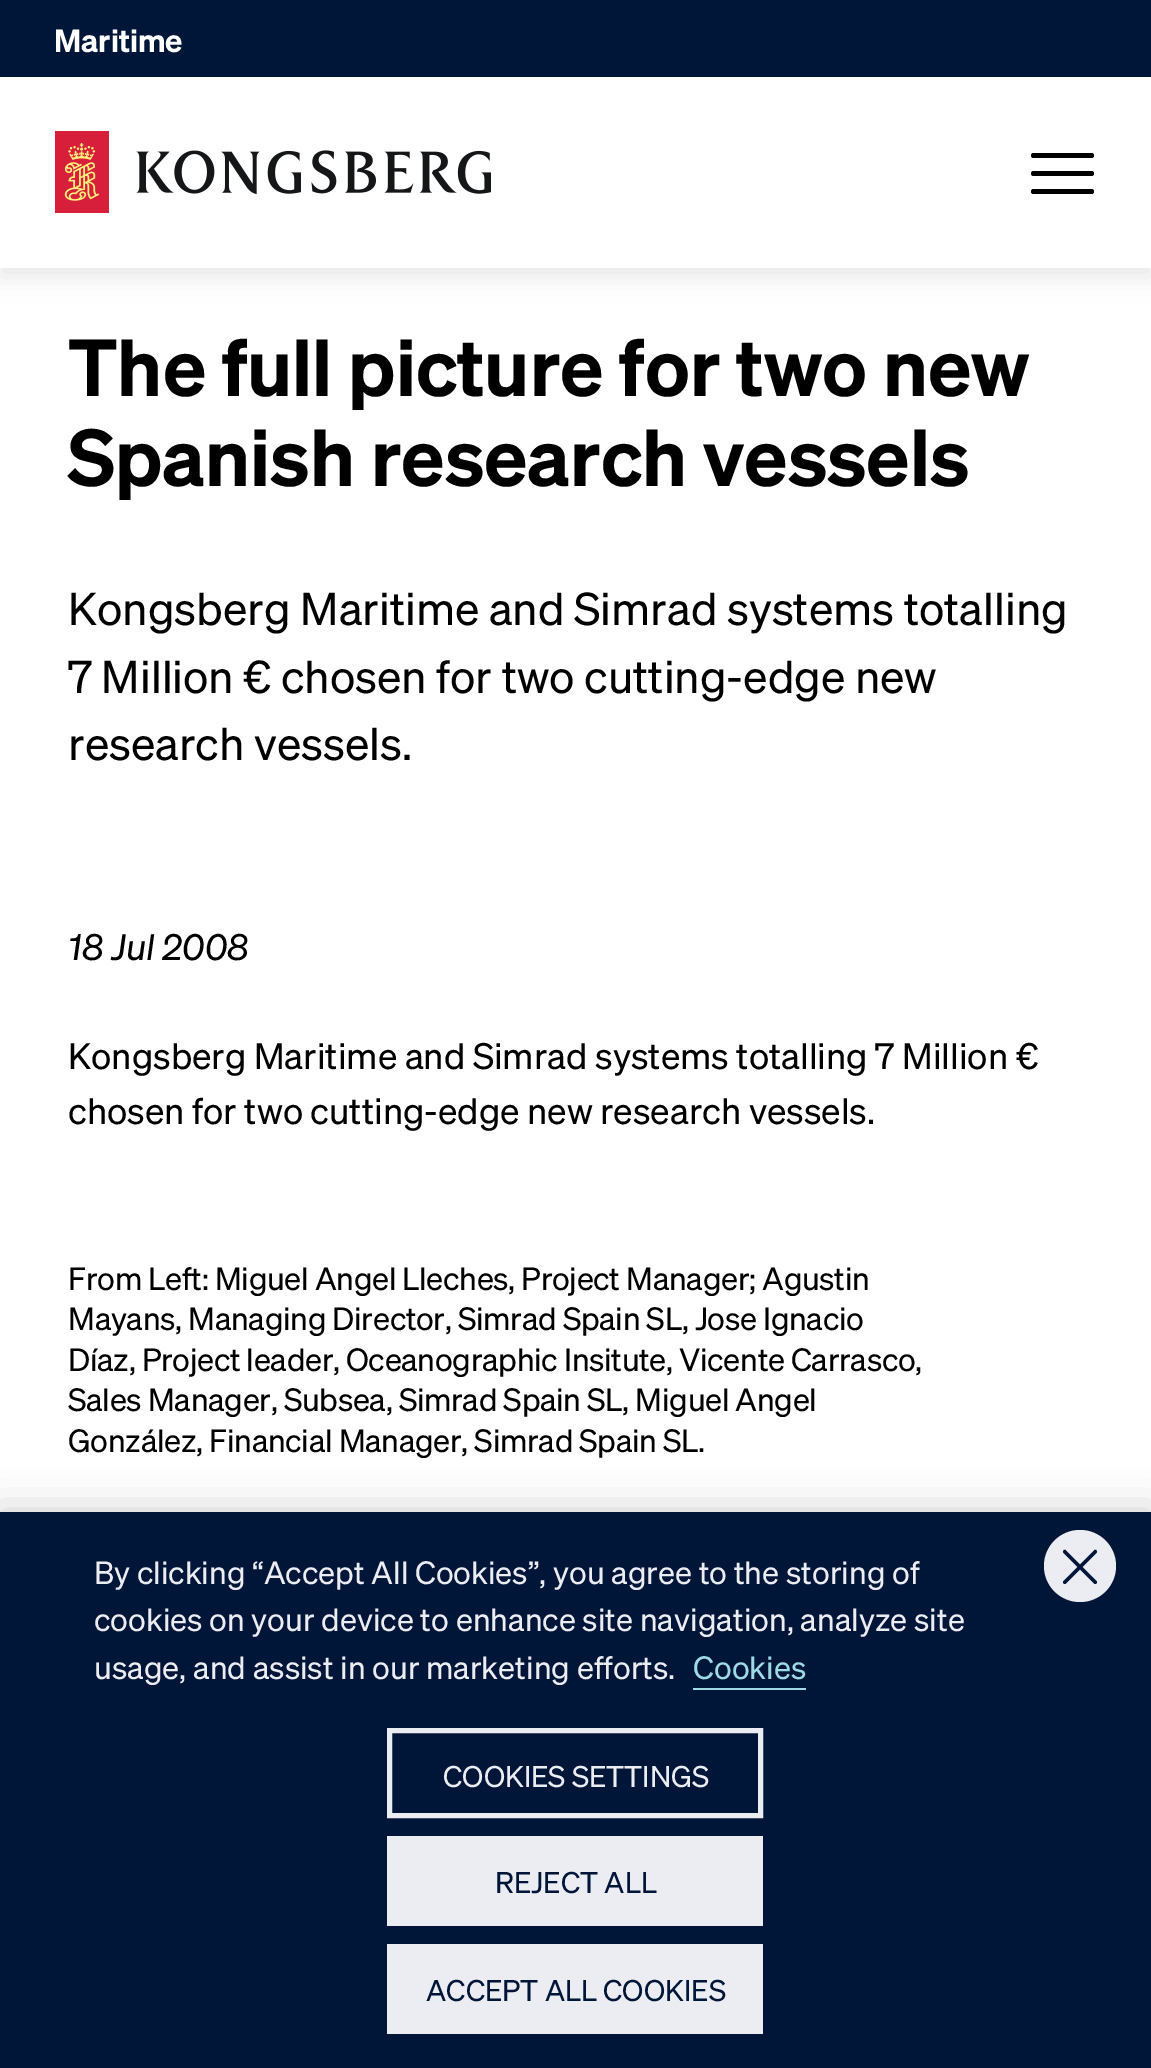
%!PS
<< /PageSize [1151 2068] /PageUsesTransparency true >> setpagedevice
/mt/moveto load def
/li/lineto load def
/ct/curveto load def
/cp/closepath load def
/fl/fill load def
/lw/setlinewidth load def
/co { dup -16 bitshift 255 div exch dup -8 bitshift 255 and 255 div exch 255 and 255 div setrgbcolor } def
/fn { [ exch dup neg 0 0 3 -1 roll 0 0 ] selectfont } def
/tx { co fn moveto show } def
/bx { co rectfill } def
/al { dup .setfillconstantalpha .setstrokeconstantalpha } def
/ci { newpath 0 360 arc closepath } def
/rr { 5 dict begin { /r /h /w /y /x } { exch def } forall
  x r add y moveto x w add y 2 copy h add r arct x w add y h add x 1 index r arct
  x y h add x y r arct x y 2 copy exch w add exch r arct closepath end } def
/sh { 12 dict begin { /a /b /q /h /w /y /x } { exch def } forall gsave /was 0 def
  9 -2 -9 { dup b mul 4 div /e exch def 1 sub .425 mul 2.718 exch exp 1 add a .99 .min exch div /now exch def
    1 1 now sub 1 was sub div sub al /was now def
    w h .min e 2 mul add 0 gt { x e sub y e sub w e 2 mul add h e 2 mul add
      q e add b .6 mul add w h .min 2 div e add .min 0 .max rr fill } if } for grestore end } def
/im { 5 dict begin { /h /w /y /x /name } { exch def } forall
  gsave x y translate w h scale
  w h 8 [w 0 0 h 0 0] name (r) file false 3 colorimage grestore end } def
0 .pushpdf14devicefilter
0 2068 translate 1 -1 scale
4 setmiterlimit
0 0 1151 2068 16#FFFFFF bx
16#000000 co
0 9 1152 268 0 11 .09 sh
0 0 1151 77 16#001639 bx
0 77 1151 191 16#FFFFFF bx
(media/1.raw) 55 131 436 82 im
16#000000 co
1031 171 63 5 2.5 rr fl
1031 153 63 5 2.5 rr fl
1031 189 63 5 2.5 rr fl
0 1512 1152 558 0 20 .2 sh
0 1512 1151 556 16#001639 bx
693 1688 113 2 16#9EDAE6 bx
16#ECEDF2 co
5 lw
389.5 1730.5 371 85 rectstroke
387 1836 376 90 16#ECEDF2 bx
387 1944 376 90 16#ECEDF2 bx
1080 1566 36 ci fl
16#001639 co
1096.5 1550.5 mt 1097 1551 1097 1552 1096.5 1553 ct 1066 1583.5 li 1065.5 1584 1064 1584 1063.5 1583.5 ct 1063 1582.5 1063 1581.5 1063.5 1581 ct 1094 1550.5 li 1094.5 1549.5 1096 1549.5 1096.5 1550.5 ct cp fl
1063.5 1550.5 mt 1064 1549.5 1065.5 1549.5 1066 1550.5 ct 1096.5 1581 li 1097 1581.5 1097 1582.5 1096.5 1583.5 ct 1096 1584 1094.5 1584 1094 1583.5 ct 1063.5 1553 li 1063 1552 1063 1551 1063.5 1550.5 ct cp fl
(Maritime) 54 52 /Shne-SemiBold 31.5 16#FFFFFF tx
(The full picture for two new) 68 396 /Shne-SemiBold 78.75 16#000000 tx
(Spanish research vessels) 68 486 /Shne-SemiBold 78.75 16#000000 tx
(Kongsberg Maritime and Simrad systems totalling) 68 625 /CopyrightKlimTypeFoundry-Regular 45 16#000000 tx
(7 Million € chosen for two cutting-edge new) 68 693 /CopyrightKlimTypeFoundry-Regular 45 16#000000 tx
(research vessels.) 68 760 /CopyrightKlimTypeFoundry-Regular 45 16#000000 tx
(18 Jul 2008) 68 960 /CopyrightKlimTypeFoundry-Italic 36 16#000000 tx
(Kongsberg Maritime and Simrad systems totalling 7 Million €) 68 1069 /CopyrightKlimTypeFoundry-Regular 36 16#000000 tx
(chosen for two cutting-edge new research vessels.) 68 1124 /CopyrightKlimTypeFoundry-Regular 36 16#000000 tx
/CopyrightKlimTypeFoundry-Regular 31.5 fn
68 1290 mt -.32 0 (From Left: Miguel Angel Lleches, Project Manager; Agustin) ashow
68 1330 mt -.32 0 (Mayans, Managing Director, Simrad Spain SL, Jose Ignacio) ashow
68 1371 mt -.32 0 (Díaz, Project leader, Oceanographic Insitute, Vicente Carrasco,) ashow
68 1411 mt -.32 0 (Sales Manager, Subsea, Simrad Spain SL, Miguel Angel) ashow
68 1452 mt -.32 0 (González, Financial Manager, Simrad Spain SL.) ashow
(By clicking “Accept All Cookies”, you agree to the storing of) 94 1584 /CopyrightKlimTypeFoundry-Regular 31.5 16#ECEDF2 tx
(cookies on your device to enhance site navigation, analyze site) 94 1631 /CopyrightKlimTypeFoundry-Regular 31.5 16#ECEDF2 tx
(usage, and assist in our marketing efforts.) 94 1679 /CopyrightKlimTypeFoundry-Regular 31.5 16#ECEDF2 tx
(Cookies) 693 1679 /CopyrightKlimTypeFoundry-Regular 31.5 16#9EDAE6 tx
(COOKIES SETTINGS) 443 1787 /CopyrightKlimTypeFoundry-Regular 29.25 16#ECEDF2 tx
(REJECT ALL) 495 1893 /CopyrightKlimTypeFoundry-Regular 29.25 16#001639 tx
(ACCEPT ALL COOKIES) 426 2001 /CopyrightKlimTypeFoundry-Regular 29.25 16#001639 tx
.poppdf14devicefilter showpage
